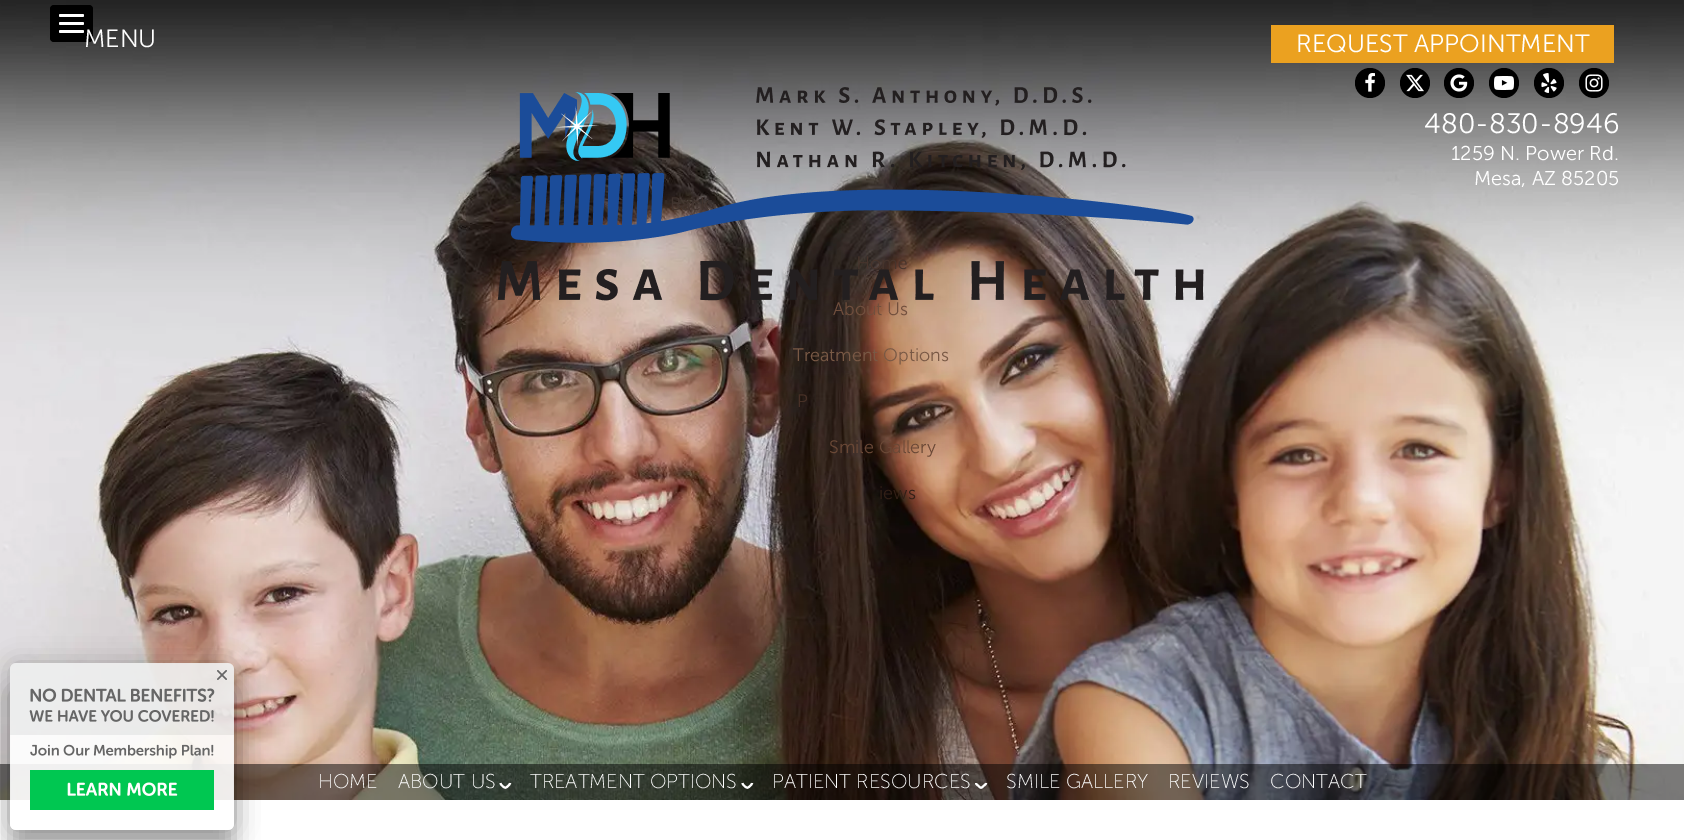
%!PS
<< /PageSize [1684 840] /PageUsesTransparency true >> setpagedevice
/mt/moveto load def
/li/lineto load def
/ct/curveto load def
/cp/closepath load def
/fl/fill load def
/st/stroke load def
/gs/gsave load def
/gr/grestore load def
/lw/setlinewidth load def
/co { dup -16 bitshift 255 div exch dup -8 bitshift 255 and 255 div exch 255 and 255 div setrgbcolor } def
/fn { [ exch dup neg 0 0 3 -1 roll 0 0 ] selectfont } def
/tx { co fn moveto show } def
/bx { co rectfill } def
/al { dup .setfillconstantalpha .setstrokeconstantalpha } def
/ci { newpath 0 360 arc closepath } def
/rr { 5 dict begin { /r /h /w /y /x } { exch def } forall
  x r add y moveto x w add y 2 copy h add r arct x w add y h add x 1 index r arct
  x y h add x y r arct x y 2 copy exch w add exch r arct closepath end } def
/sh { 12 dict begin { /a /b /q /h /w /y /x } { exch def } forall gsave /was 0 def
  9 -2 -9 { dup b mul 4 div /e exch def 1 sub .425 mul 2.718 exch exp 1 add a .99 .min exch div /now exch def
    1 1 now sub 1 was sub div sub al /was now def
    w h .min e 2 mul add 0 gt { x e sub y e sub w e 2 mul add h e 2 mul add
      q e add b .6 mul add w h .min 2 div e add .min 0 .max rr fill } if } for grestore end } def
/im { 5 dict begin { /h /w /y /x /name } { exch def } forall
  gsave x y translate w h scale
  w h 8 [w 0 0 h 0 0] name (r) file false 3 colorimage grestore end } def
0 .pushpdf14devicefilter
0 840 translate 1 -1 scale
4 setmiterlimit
0 0 1684 840 16#FFFFFF bx
(media/8.raw) 0 0 1684 800 im
16#000000 co
50 5 43 37 4 rr fl
16#FFFFFF co
59 14 25 3 1.5 rr fl
59 22 25 3 1.5 rr fl
59 30 25 3 1.5 rr fl
(media/1.raw) 497 87 707 214 im
1271 25 343 38 16#EBA120 bx
16#000000 co
1370 83 15 ci fl
(media/2.raw) 1365 73 10 19 im
1415 83 15 ci fl
(media/3.raw) 1406 74 18 18 im
1459 83 15 ci fl
(media/4.raw) 1450 74 18 18 im
1504 83 15 ci fl
(media/5.raw) 1494 76 20 14 im
1549 83 15 ci fl
(media/6.raw) 1541 73 16 20 im
1594 83 15 ci fl
(media/7.raw) 1585 74 18 18 im
0.5 al
0 764 1684 36 16#000000 bx
1 al
16#FFFFFF co
2 lw
510 783 mt 510 784 509 785 508.5 785.5 ct 505.5 788.5 505 788.5 502 785.5 ct 501.5 785 500.5 784 500.5 783 ct st
752 783 mt 752 784 751 785 750.5 785.5 ct 747.5 788.5 747 788.5 744 785.5 ct 743.5 785 742.5 784 742.5 783 ct st
986 783 mt 986 784 985 785 984 785.5 ct 981 788.5 981 788.5 978 785.5 ct 977 785 976 784 976 783 ct st
gs
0 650 mt 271 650 li 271 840 li 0 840 li cp 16 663 mt 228 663 li 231.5 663 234 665.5 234 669 ct 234 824 li 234 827.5 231.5 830 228 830 ct 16 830 li 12.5 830 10 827.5 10 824 ct 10 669 li 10 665.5 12.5 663 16 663 ct cp eoclip newpath
16#000000 co
10 687 224 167 6 12 .3 sh
gr
gs
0 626 mt 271 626 li 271 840 li 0 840 li cp 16 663 mt 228 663 li 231.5 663 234 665.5 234 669 ct 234 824 li 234 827.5 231.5 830 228 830 ct 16 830 li 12.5 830 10 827.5 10 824 ct 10 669 li 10 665.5 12.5 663 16 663 ct cp eoclip newpath
16#000000 co
10 663 224 167 6 12 .22 sh
gr
(media/9.raw) 10 663 224 167 im
(MENU) 84 47 /MuseoSans-Light 25 16#FFFFFF tx
(About Us) 833 315 /MuseoSans-Light 18 16#714F3D tx
(Treatment Options) 793 361 /MuseoSans-Light 18 16#795945 tx
(P) 797 407 /MuseoSans-Light 18 16#473026 tx
(Smile Gallery) 829 453 /MuseoSans-Light 18 16#6A4836 tx
(iews) 879 499 /MuseoSans-Light 18 16#321F16 tx
(REQUEST APPOINTMENT) 1296 52 /MuseoSans-Light 25 16#FFFFFF tx
(480-830-8946) 1424 133 /MuseoSans-Light 28 16#FFFFFF tx
(1259 N. Power Rd.) 1451 160 /MuseoSans-Light 20 16#FFFFFF tx
(Mesa, AZ 85205) 1474 185 /MuseoSans-Light 20 16#FFFFFF tx
(HOME) 318 788 /MuseoSans-ExtraLight 20 16#FFFFFF tx
(ABOUT US) 398 788 /MuseoSans-ExtraLight 20 16#FFFFFF tx
(TREATMENT OPTIONS) 530 788 /MuseoSans-ExtraLight 20 16#FFFFFF tx
(PATIENT RESOURCES) 772 788 /MuseoSans-ExtraLight 20 16#FFFFFF tx
(SMILE GALLERY) 1006 788 /MuseoSans-ExtraLight 20 16#FFFFFF tx
(REVIEWS) 1168 788 /MuseoSans-ExtraLight 20 16#FFFFFF tx
(CONTACT) 1270 788 /MuseoSans-ExtraLight 20 16#FFFFFF tx
.poppdf14devicefilter showpage
